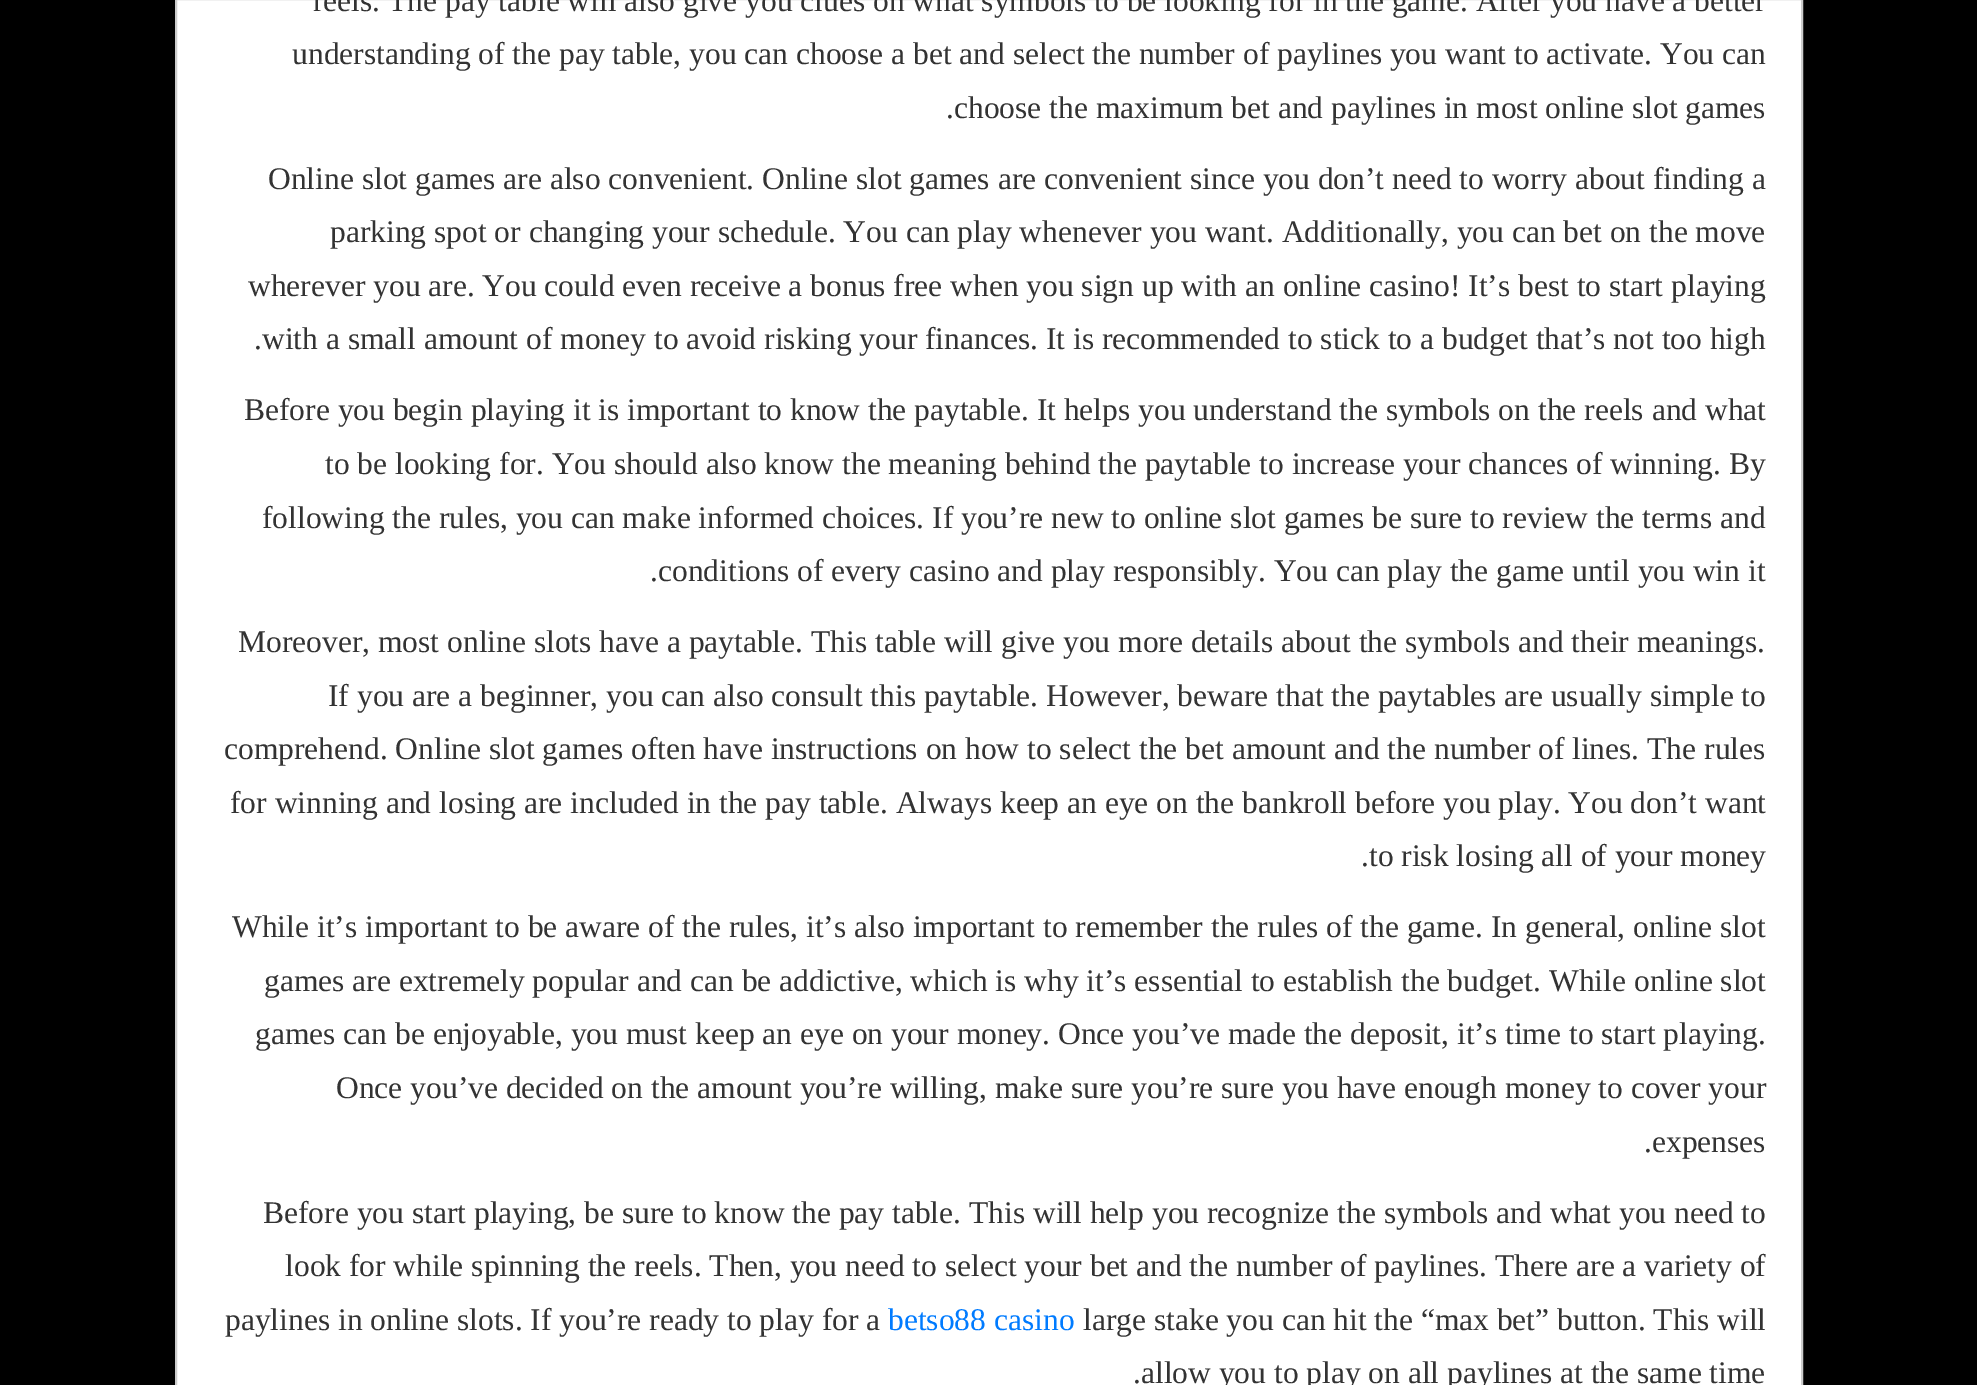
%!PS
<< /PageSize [1977 1385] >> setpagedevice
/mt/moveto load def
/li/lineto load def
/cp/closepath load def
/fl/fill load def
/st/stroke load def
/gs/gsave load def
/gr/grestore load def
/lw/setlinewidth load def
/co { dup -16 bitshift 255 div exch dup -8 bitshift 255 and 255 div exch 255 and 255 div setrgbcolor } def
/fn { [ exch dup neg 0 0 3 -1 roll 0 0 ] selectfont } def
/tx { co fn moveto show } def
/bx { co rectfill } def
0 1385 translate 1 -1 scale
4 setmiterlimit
0 0 1977 1385 16#000000 bx
16#FFFFFF co
176 -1 mt 1802 -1 li 1802 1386 li 176 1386 li cp gs fl gr
16#CCCCCC co
2 lw
st
(reels. The pay table will also give you clues on what symbols to be looking for in the game. After you have a better) 313 11 /LiberationSerif-Regular 31.5 16#333333 tx
(understanding of the pay table, you can choose a bet and select the number of paylines you want to activate. You can) 292 64 /LiberationSerif-Regular 31.5 16#333333 tx
(.choose the maximum bet and paylines in most online slot games) 946 118 /LiberationSerif-Regular 31.5 16#333333 tx
(Online slot games are also convenient. Online slot games are convenient since you don’t need to worry about finding a) 268 189 /LiberationSerif-Regular 31.5 16#333333 tx
(parking spot or changing your schedule. You can play whenever you want. Additionally, you can bet on the move) 330 242 /LiberationSerif-Regular 31.5 16#333333 tx
(wherever you are. You could even receive a bonus free when you sign up with an online casino! It’s best to start playing) 248 296 /LiberationSerif-Regular 31.5 16#333333 tx
(.with a small amount of money to avoid risking your finances. It is recommended to stick to a budget that’s not too high) 254 349 /LiberationSerif-Regular 31.5 16#333333 tx
(Before you begin playing it is important to know the paytable. It helps you understand the symbols on the reels and what) 244 420 /LiberationSerif-Regular 31.5 16#333333 tx
(to be looking for. You should also know the meaning behind the paytable to increase your chances of winning. By) 325 474 /LiberationSerif-Regular 31.5 16#333333 tx
(following the rules, you can make informed choices. If you’re new to online slot games be sure to review the terms and) 262 528 /LiberationSerif-Regular 31.5 16#333333 tx
(.conditions of every casino and play responsibly. You can play the game until you win it) 650 581 /LiberationSerif-Regular 31.5 16#333333 tx
(Moreover, most online slots have a paytable. This table will give you more details about the symbols and their meanings.) 238 652 /LiberationSerif-Regular 31.5 16#333333 tx
(If you are a beginner, you can also consult this paytable. However, beware that the paytables are usually simple to) 328 706 /LiberationSerif-Regular 31.5 16#333333 tx
(comprehend. Online slot games often have instructions on how to select the bet amount and the number of lines. The rules) 224 759 /LiberationSerif-Regular 31.5 16#333333 tx
(for winning and losing are included in the pay table. Always keep an eye on the bankroll before you play. You don’t want) 230 813 /LiberationSerif-Regular 31.5 16#333333 tx
(.to risk losing all of your money) 1361 866 /LiberationSerif-Regular 31.5 16#333333 tx
(While it’s important to be aware of the rules, it’s also important to remember the rules of the game. In general, online slot) 232 937 /LiberationSerif-Regular 31.5 16#333333 tx
(games are extremely popular and can be addictive, which is why it’s essential to establish the budget. While online slot) 264 991 /LiberationSerif-Regular 31.5 16#333333 tx
(games can be enjoyable, you must keep an eye on your money. Once you’ve made the deposit, it’s time to start playing.) 255 1044 /LiberationSerif-Regular 31.5 16#333333 tx
(Once you’ve decided on the amount you’re willing, make sure you’re sure you have enough money to cover your) 336 1098 /LiberationSerif-Regular 31.5 16#333333 tx
(.expenses) 1644 1152 /LiberationSerif-Regular 31.5 16#333333 tx
(Before you start playing, be sure to know the pay table. This will help you recognize the symbols and what you need to) 263 1223 /LiberationSerif-Regular 31.5 16#333333 tx
(look for while spinning the reels. Then, you need to select your bet and the number of paylines. There are a variety of) 285 1276 /LiberationSerif-Regular 31.5 16#333333 tx
(paylines in online slots. If you’re ready to play for a) 225 1330 /LiberationSerif-Regular 31.5 16#333333 tx
(betso88 casino) 888 1330 /LiberationSerif-Regular 31.5 16#007BFF tx
(large stake you can hit the “max bet” button. This will) 1083 1330 /LiberationSerif-Regular 31.5 16#333333 tx
(.allow you to play on all paylines at the same time) 1133 1383 /LiberationSerif-Regular 31.5 16#333333 tx
showpage
